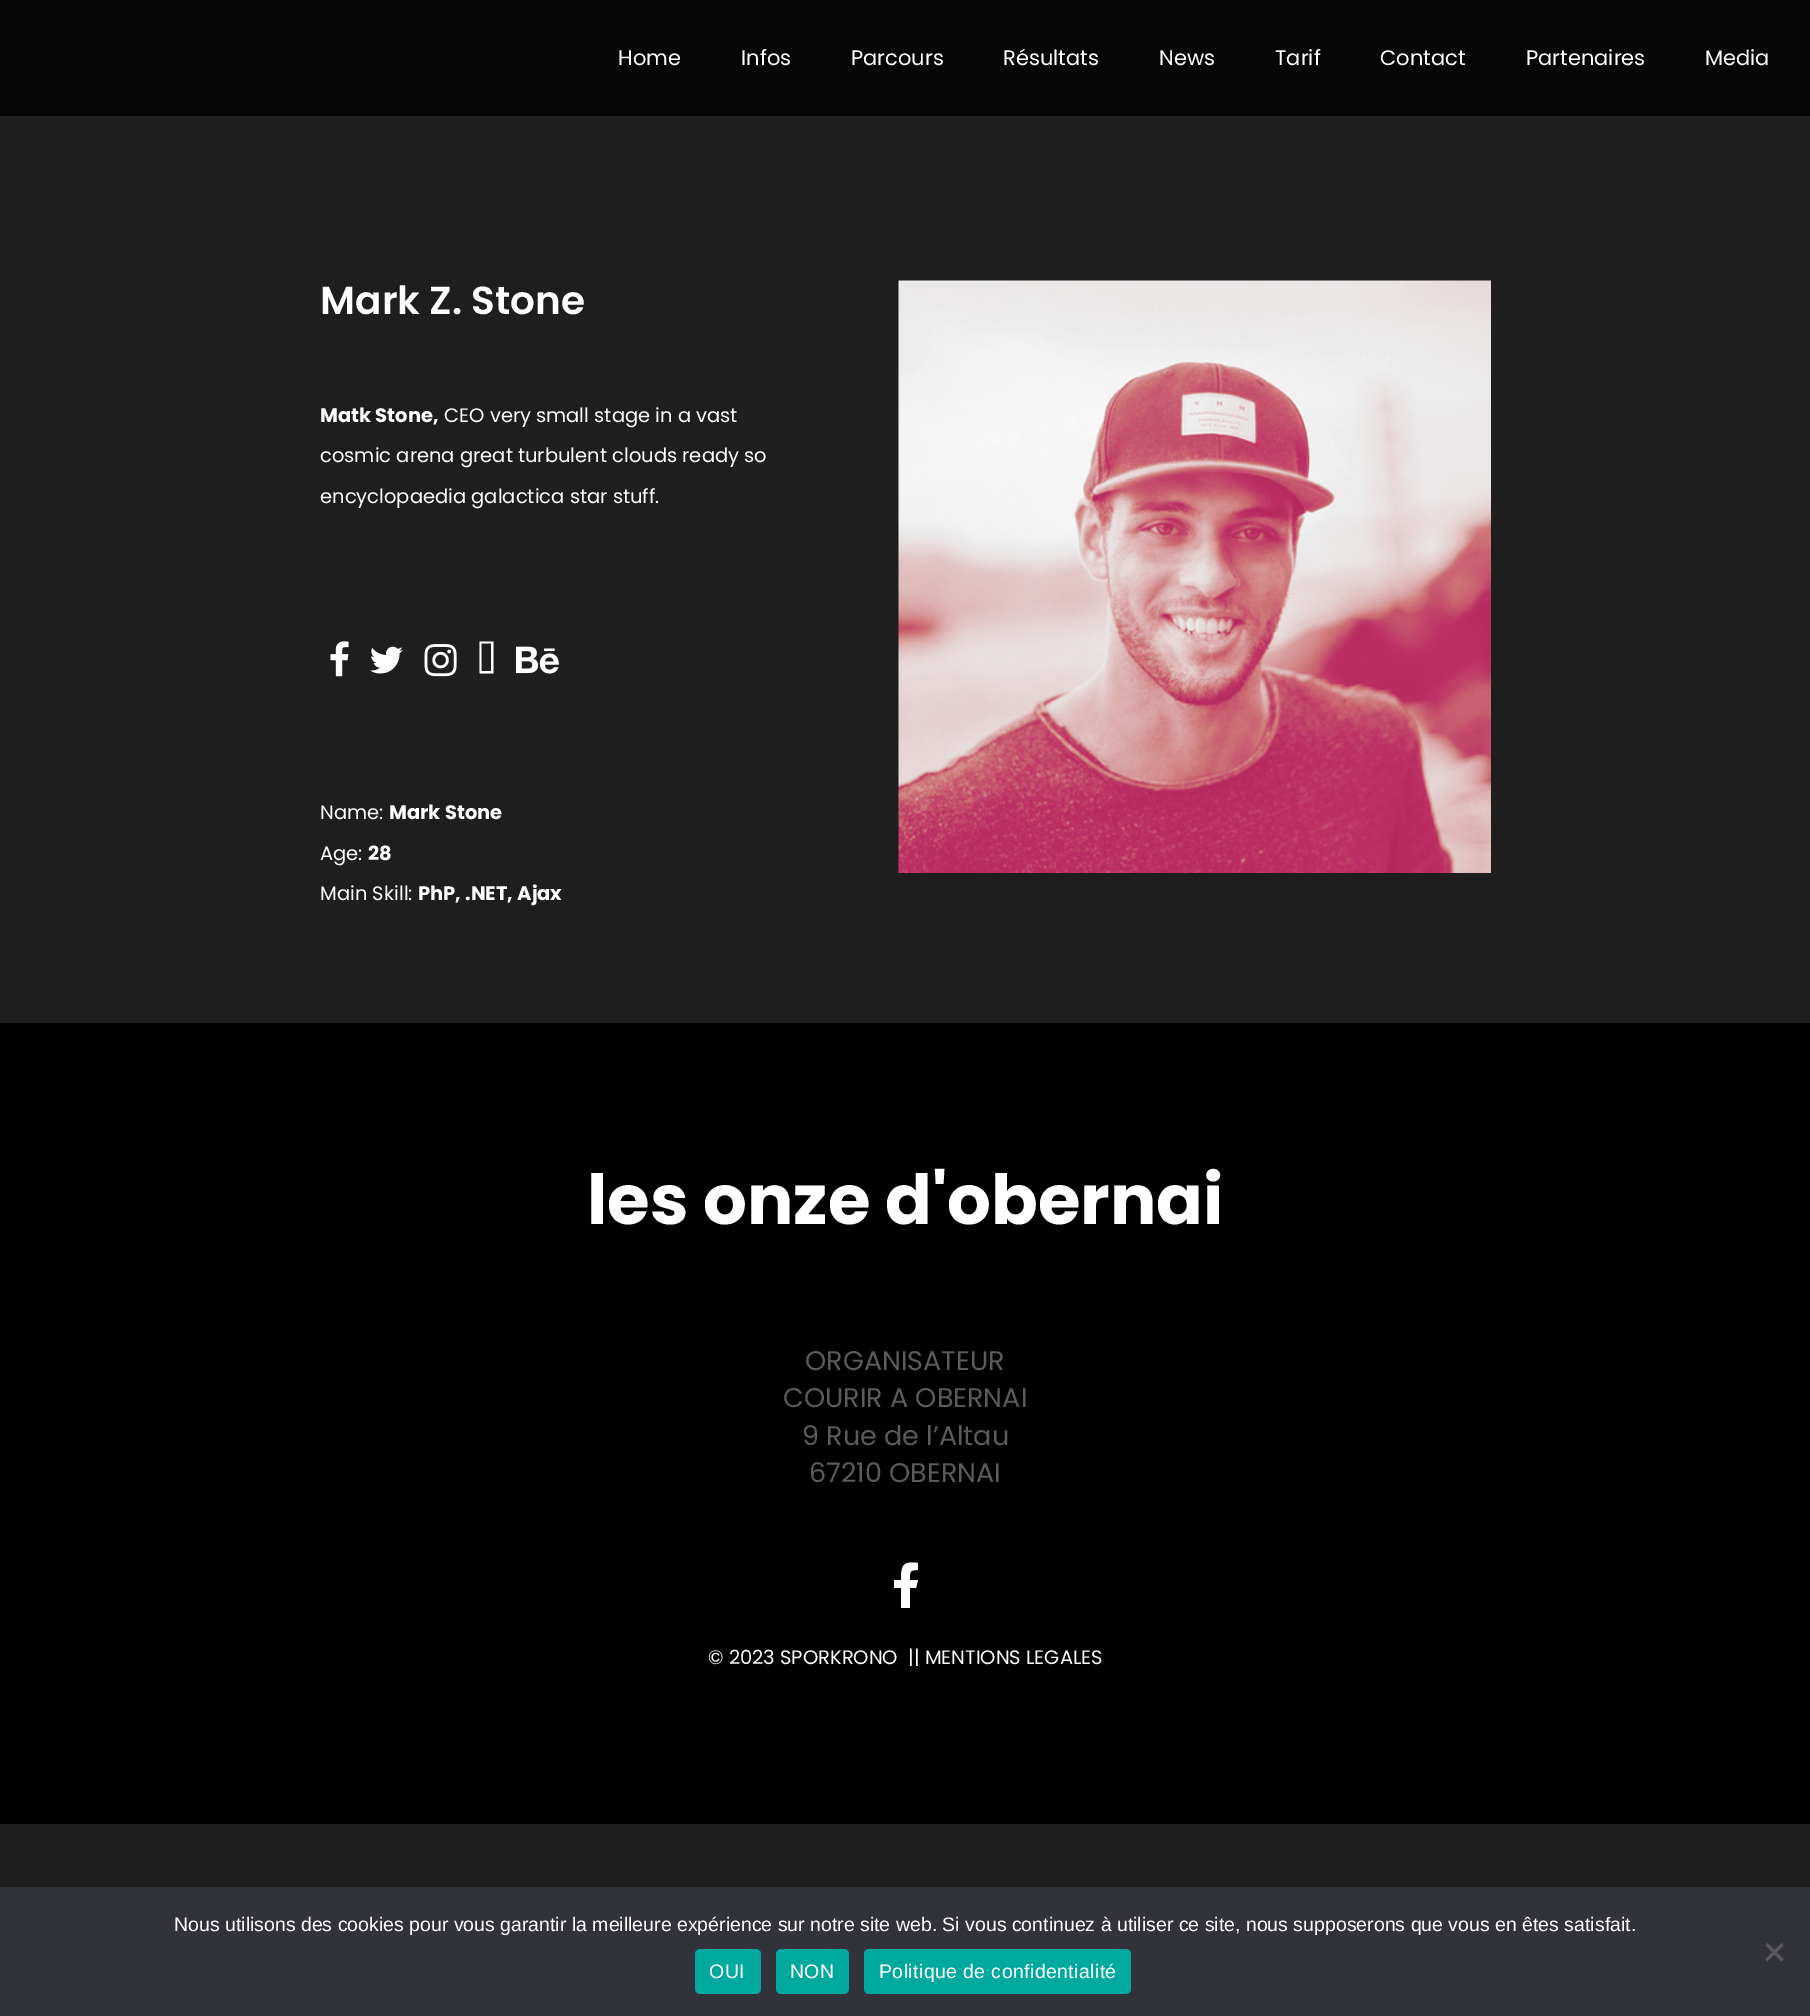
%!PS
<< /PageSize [1810 2016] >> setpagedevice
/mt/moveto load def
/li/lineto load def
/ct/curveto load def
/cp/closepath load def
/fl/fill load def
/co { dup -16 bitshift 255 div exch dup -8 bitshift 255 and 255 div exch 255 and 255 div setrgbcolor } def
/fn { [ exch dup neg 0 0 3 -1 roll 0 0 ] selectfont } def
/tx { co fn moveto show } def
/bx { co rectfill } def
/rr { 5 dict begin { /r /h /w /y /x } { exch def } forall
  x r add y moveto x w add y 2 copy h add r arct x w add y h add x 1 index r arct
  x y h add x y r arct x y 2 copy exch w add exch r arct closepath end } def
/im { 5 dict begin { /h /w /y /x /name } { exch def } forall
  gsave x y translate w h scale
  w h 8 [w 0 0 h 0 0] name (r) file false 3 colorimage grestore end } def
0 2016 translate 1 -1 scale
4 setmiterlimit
0 0 1810 2016 16#1E1E1E bx
0 0 1810 116 16#060606 bx
(media/1.raw) 330 641 19 36 im
(media/2.raw) 370 646 33 28 im
(media/3.raw) 424 644 33 33 im
16#FFFFFF co
481.5 671 mt 491 671 li 491 643.5 li 481.5 643.5 li cp 479.5 673.5 mt 479.5 641.5 li 493.5 641.5 li 493.5 673.5 li cp fl
(media/4.raw) 516 646 43 28 im
(media/5.raw) 898 280 593 593 im
0 1023 1810 801 16#000000 bx
16#FFFFFF co
916 1588 mt 910 1588 li 910 1608 li 901 1608 li 901 1588 li 894 1588 li 894 1580 li 901 1580 li 901 1565 903 1561 918 1563 ct 918 1570 li 909 1570 910 1572 910 1580 ct 918 1580 li cp fl
0 1887 1810 129 16#32323A bx
16#59595D co
1781.5 1943 mt 1783.5 1945.5 li 1767.5 1961.5 li 1765.5 1959 li cp fl
1765.5 1945.5 mt 1767.5 1943 li 1783.5 1959 li 1781.5 1961.5 li cp fl
16#00A99D co
695 1949 66 45 5 rr fl
776 1949 73 45 5 rr fl
864 1949 267 45 5 rr fl
(Home) 618 65 /Poppins-Regular 21 16#FFFFFF tx
(Infos) 741 65 /Poppins-Regular 21 16#FFFFFF tx
(Parcours) 851 65 /Poppins-Regular 21 16#FFFFFF tx
(Résultats) 1003 65 /Poppins-Regular 21 16#FFFFFF tx
(News) 1159 65 /Poppins-Regular 21 16#FFFFFF tx
(Tarif) 1275 65 /Poppins-Regular 21 16#FFFFFF tx
(Contact) 1380 65 /Poppins-Regular 21 16#FFFFFF tx
(Partenaires) 1526 65 /Poppins-Regular 21 16#FFFFFF tx
(Media) 1705 65 /Poppins-Regular 21 16#FFFFFF tx
(Mark Z. Stone) 320 314 /Poppins-SemiBold 39 16#FFFFFF tx
(Matk Stone,) 320 422 /Poppins-Bold 19.5 16#FFFFFF tx
(CEO very small stage in a vast) 444 422 /Poppins-Regular 19.5 16#FFFFFF tx
(cosmic arena great turbulent clouds ready so) 320 462 /Poppins-Regular 19.5 16#FFFFFF tx
(encyclopaedia galactica star stuff.) 320 503 /Poppins-Regular 19.5 16#FFFFFF tx
(Name:) 320 819 /Poppins-Regular 19.5 16#FFFFFF tx
(Mark Stone) 389 819 /Poppins-Bold 19.5 16#FFFFFF tx
(Age:) 320 860 /Poppins-Regular 19.5 16#FFFFFF tx
(28) 368 860 /Poppins-Bold 19.5 16#FFFFFF tx
(Main Skill:) 320 900 /Poppins-Regular 19.5 16#FFFFFF tx
(PhP, .NET, Ajax) 418 900 /Poppins-Bold 19.5 16#FFFFFF tx
(les onze d'obernai) 587 1224 /Poppins-Bold 69 16#FFFFFF tx
(ORGANISATEUR) 805 1370 /Poppins-Regular 27 16#5B5B5B tx
(COURIR A OBERNAI) 783 1407 /Poppins-Regular 27 16#5B5B5B tx
(9 Rue de l’Altau) 802 1445 /Poppins-Regular 27 16#5B5B5B tx
(67210 OBERNAI) 809 1482 /Poppins-Regular 27 16#5B5B5B tx
(© 2023 SPORKRONO) 708 1664 /Poppins-Regular 19.5 16#FFFFFF tx
(|| MENTIONS LEGALES) 908 1664 /Poppins-Regular 19.5 16#FFFFFF tx
(Nous utilisons des cookies pour vous garantir la meilleure expérience sur notre site web. Si vous continuez à utiliser ce site, nous supposerons que vous en êtes satisfait.) 174 1931 /LiberationSans-Regular 19.5 16#FFFFFF tx
709 1978 mt .4 0 (OUI) ashow
790 1978 mt .4 0 (NON) ashow
879 1978 mt .4 0 (Politique de confidentialité) ashow
showpage
